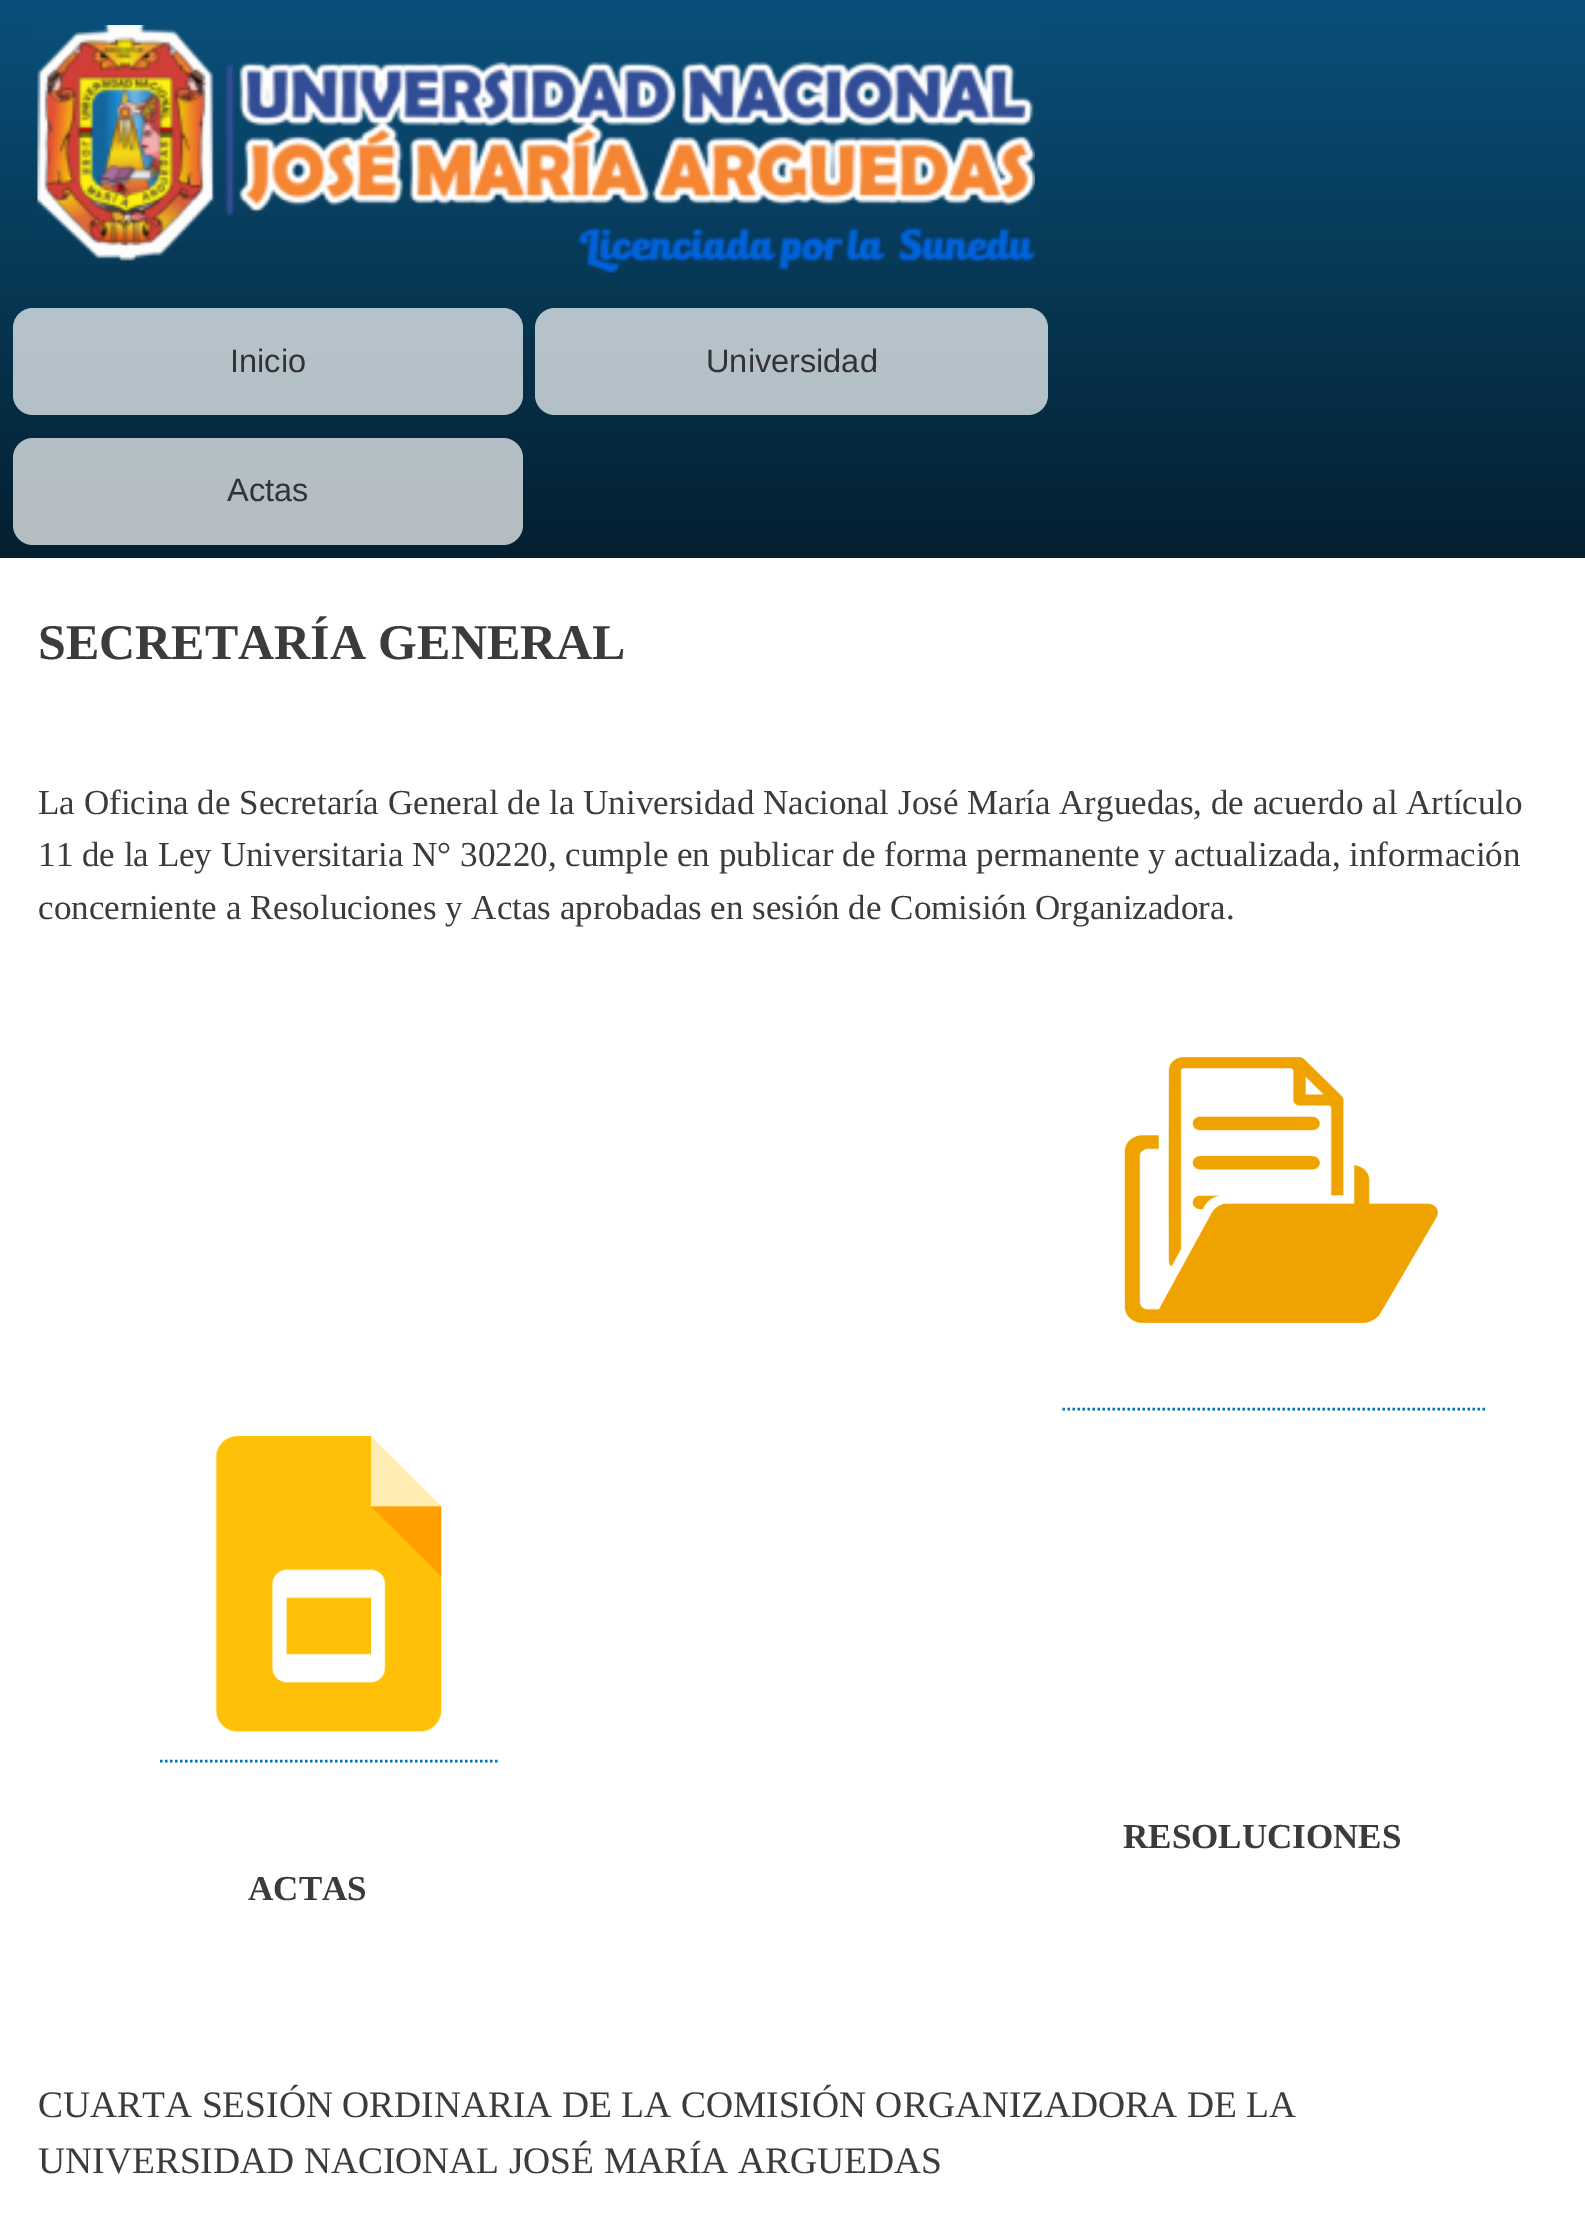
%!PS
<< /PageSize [1585 2220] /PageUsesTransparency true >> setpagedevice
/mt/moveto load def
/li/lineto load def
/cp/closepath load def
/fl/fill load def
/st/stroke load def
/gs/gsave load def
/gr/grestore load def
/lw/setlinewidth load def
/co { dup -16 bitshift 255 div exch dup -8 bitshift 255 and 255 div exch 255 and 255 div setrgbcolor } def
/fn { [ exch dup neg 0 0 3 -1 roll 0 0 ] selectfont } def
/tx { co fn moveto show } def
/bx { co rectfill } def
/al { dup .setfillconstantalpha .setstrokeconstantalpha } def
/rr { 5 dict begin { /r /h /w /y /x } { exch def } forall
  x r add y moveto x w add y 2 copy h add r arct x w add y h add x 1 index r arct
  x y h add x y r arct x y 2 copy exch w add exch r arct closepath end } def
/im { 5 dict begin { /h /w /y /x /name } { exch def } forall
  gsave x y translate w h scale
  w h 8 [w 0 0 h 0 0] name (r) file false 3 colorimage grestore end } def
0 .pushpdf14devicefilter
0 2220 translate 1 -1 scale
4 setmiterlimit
0 0 1585 2220 16#FFFFFF bx
gs 0 0 mt 1585 0 li 1585 558 li 0 558 li cp clip newpath
<< /ShadingType 2 /ColorSpace /DeviceRGB /Coords [793 0 793 558] /Extend [true true] /Function << /FunctionType 2 /Domain [0 1] /C0 [.039 .314 .482] /C1 [.016 .122 .188] /N 1 >> >> shfill gr
(media/1.raw) 37 25 998 248 im
0.7 al
13 308 510 107 20 rr fl
535 308 513 107 20 rr fl
13 438 510 107 20 rr fl
1 al
(media/2.raw) 1124 1057 314 266 im
16#0071B3 co
2.5 lw
[2.5 2.5] 0 setdash
1062.5 1409 mt 1487.5 1409 li st
(media/3.raw) 215 1436 227 296 im
160 1761 mt 497.5 1761 li st
(Inicio) 230 372 /LiberationSans-Regular 32.5 16#333333 tx
(Universidad) 706 372 /LiberationSans-Regular 32.5 16#333333 tx
(Actas) 227 501 /LiberationSans-Regular 32.5 16#333333 tx
(SECRETARÍA GENERAL) 38 659 /LiberationSerif-Bold 50 16#3B3B3B tx
(La Oficina de Secretaría General de la Universidad Nacional José María Arguedas, de acuerdo al Artículo) 38 814 /LiberationSerif-Regular 35 16#3B3B3B tx
(11 de la Ley Universitaria N° 30220, cumple en publicar de forma permanente y actualizada, información) 38 866 /LiberationSerif-Regular 35 16#3B3B3B tx
(concerniente a Resoluciones y Actas aprobadas en sesión de Comisión Organizadora.) 38 919 /LiberationSerif-Regular 35 16#3B3B3B tx
(RESOLUCIONES) 1123 1848 /LiberationSerif-Bold 35 16#3B3B3B tx
(ACTAS) 248 1900 /LiberationSerif-Bold 35 16#3B3B3B tx
(CUARTA SESIÓN ORDINARIA DE LA COMISIÓN ORGANIZADORA DE LA) 38 2117 /LiberationSerif-Regular 37.5 16#3B3B3B tx
(UNIVERSIDAD NACIONAL JOSÉ MARÍA ARGUEDAS) 38 2173 /LiberationSerif-Regular 37.5 16#3B3B3B tx
.poppdf14devicefilter showpage
